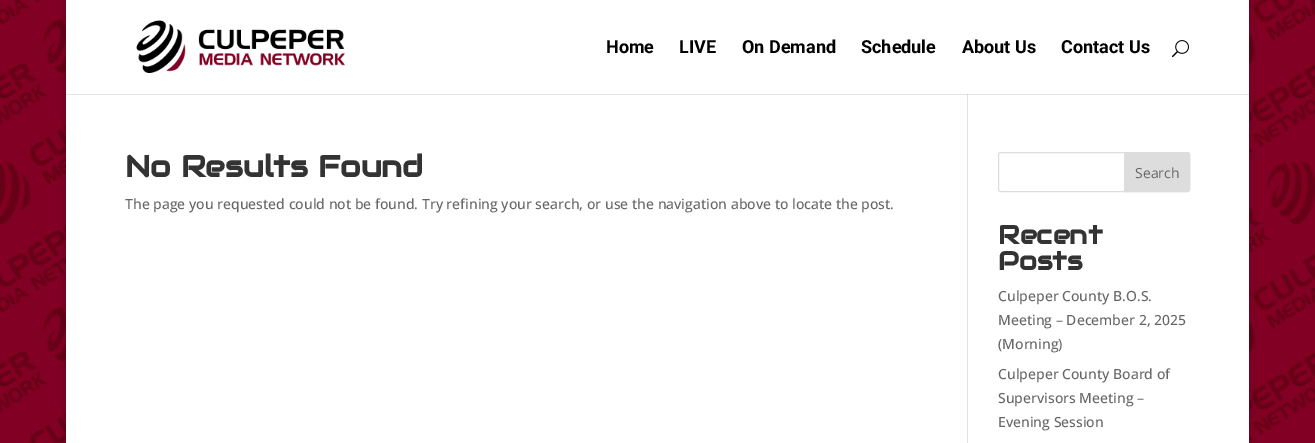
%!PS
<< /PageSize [1315 443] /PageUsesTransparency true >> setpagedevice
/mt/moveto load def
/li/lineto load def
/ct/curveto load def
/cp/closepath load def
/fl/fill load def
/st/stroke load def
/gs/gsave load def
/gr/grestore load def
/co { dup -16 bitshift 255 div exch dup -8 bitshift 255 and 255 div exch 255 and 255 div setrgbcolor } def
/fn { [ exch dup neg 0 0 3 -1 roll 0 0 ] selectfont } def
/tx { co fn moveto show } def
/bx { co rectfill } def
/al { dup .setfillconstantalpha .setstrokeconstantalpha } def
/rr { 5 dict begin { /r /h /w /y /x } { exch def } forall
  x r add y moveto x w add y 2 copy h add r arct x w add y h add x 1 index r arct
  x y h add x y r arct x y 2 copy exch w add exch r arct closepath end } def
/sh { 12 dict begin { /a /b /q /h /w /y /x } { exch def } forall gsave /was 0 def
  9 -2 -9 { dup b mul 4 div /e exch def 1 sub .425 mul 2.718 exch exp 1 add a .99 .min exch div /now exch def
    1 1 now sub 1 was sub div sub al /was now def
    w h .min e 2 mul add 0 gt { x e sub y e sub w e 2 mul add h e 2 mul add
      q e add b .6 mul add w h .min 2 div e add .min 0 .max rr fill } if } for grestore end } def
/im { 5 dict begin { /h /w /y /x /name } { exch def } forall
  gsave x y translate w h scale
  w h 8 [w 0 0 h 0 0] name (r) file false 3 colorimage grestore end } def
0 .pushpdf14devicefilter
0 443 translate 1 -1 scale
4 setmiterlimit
0 0 1315 443 16#FFFFFF bx
(media/1.raw) 0 0 1315 443 im
16#000000 co
66 0 1183 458 0 5 .2 sh
66 0 1183 443 16#FFFFFF bx
967 94 1 349 16#E2E2E2 bx
0.1 al
66 94 1183 1 16#000000 bx
1 al
(media/2.raw) 136 20 209 53 im
(media/3.raw) 1172 40 17 18 im
16#DDDDDD co
998.5 152.5 191 39 2.5 rr st
1124.5 152.5 mt 1187 152.5 li 1188.5 152.5 1189.5 153.5 1189.5 155 ct 1189.5 189 li 1189.5 190.5 1188.5 191.5 1187 191.5 ct 1124.5 191.5 li cp gs fl gr
st
(Home) 606 53 /Roboto-Bold 18 16#000000 tx
(LIVE) 679 53 /Roboto-Bold 18 16#000000 tx
(On Demand) 742 53 /Roboto-Bold 18 16#000000 tx
(Schedule) 861 53 /Roboto-Bold 18 16#000000 tx
(About Us) 962 53 /Roboto-Bold 18 16#000000 tx
(Contact Us) 1061 53 /Roboto-Bold 18 16#000000 tx
(No Results Found) 125 177 /Audiowide-Bold 30 16#333333 tx
(The page you requested could not be found. Try refining your search, or use the navigation above to locate the post.) 125 209 /OpenSans-Medium 14 16#666666 tx
(Search) 1135 178 /OpenSans-Regular 14 16#666666 tx
(Recent) 998 244 /Audiowide-Bold 26 16#333333 tx
(Posts) 998 270 /Audiowide-Bold 26 16#333333 tx
(Culpeper County B.O.S.) 998 301 /OpenSans-Medium 14 16#666666 tx
(Meeting – December 2, 2025) 998 325 /OpenSans-Medium 14 16#666666 tx
(\(Morning\)) 998 349 /OpenSans-Medium 14 16#666666 tx
(Culpeper County Board of) 998 379 /OpenSans-Medium 14 16#666666 tx
(Supervisors Meeting –) 998 403 /OpenSans-Medium 14 16#666666 tx
(Evening Session) 998 427 /OpenSans-Medium 14 16#666666 tx
.poppdf14devicefilter showpage
